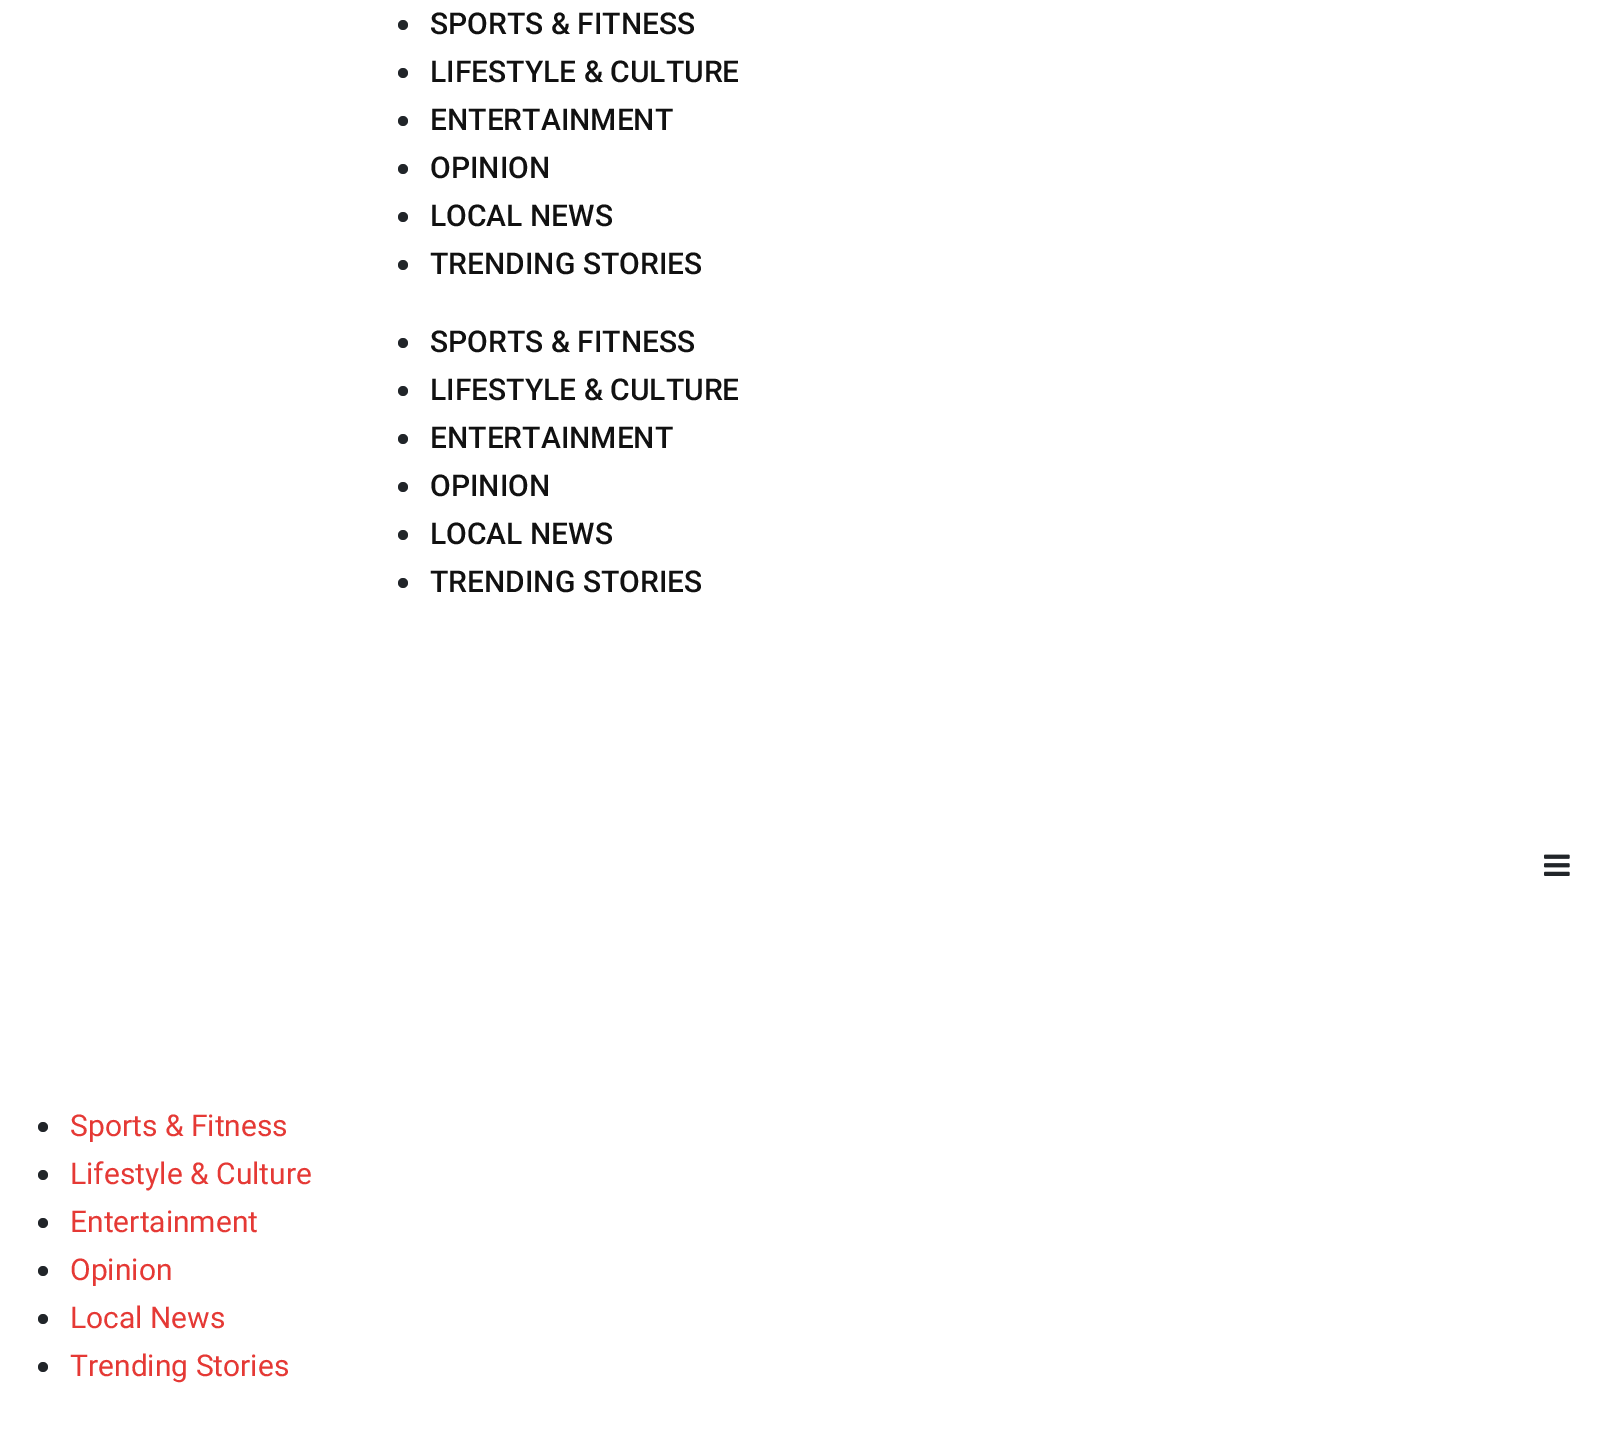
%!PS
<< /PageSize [1620 1438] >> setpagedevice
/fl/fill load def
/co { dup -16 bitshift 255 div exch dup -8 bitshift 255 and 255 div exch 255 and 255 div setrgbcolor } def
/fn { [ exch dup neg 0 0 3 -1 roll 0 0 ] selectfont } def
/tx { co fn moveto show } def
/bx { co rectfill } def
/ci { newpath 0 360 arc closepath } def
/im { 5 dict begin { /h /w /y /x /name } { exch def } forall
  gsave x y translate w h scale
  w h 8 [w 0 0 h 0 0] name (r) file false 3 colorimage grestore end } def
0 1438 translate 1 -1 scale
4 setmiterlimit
0 0 1620 1438 16#FFFFFF bx
16#212529 co
403 25 5 ci fl
403 73 5 ci fl
403 121 5 ci fl
403 169 5 ci fl
403 217 5 ci fl
403 265 5 ci fl
403 343 5 ci fl
403 391 5 ci fl
403 439 5 ci fl
403 487 5 ci fl
403 535 5 ci fl
403 583 5 ci fl
(media/1.raw) 1544 854 26 22 im
43 1127 5 ci fl
43 1175 5 ci fl
43 1223 5 ci fl
43 1271 5 ci fl
43 1319 5 ci fl
43 1367 5 ci fl
(SPORTS & FITNESS) 430 34 /Roboto-Medium 30 16#111111 tx
(LIFESTYLE & CULTURE) 430 82 /Roboto-Medium 30 16#111111 tx
(ENTERTAINMENT) 430 130 /Roboto-Medium 30 16#111111 tx
(OPINION) 430 178 /Roboto-Medium 30 16#111111 tx
(LOCAL NEWS) 430 226 /Roboto-Medium 30 16#111111 tx
(TRENDING STORIES) 430 274 /Roboto-Medium 30 16#111111 tx
(SPORTS & FITNESS) 430 352 /Roboto-Medium 30 16#111111 tx
(LIFESTYLE & CULTURE) 430 400 /Roboto-Medium 30 16#111111 tx
(ENTERTAINMENT) 430 448 /Roboto-Medium 30 16#111111 tx
(OPINION) 430 496 /Roboto-Medium 30 16#111111 tx
(LOCAL NEWS) 430 544 /Roboto-Medium 30 16#111111 tx
(TRENDING STORIES) 430 592 /Roboto-Medium 30 16#111111 tx
(Sports & Fitness) 70 1136 /Roboto-Regular 30 16#E53935 tx
(Lifestyle & Culture) 70 1184 /Roboto-Regular 30 16#E53935 tx
(Entertainment) 70 1232 /Roboto-Regular 30 16#E53935 tx
(Opinion) 70 1280 /Roboto-Regular 30 16#E53935 tx
(Local News) 70 1328 /Roboto-Regular 30 16#E53935 tx
(Trending Stories) 70 1376 /Roboto-Regular 30 16#E53935 tx
showpage
